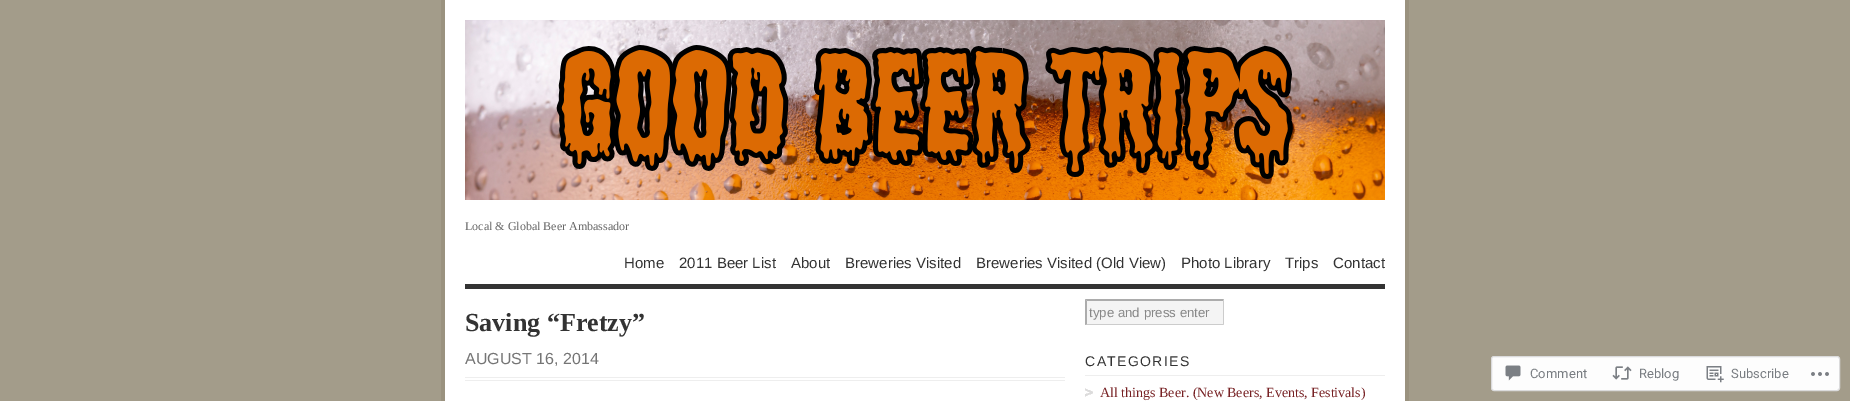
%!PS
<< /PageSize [1850 401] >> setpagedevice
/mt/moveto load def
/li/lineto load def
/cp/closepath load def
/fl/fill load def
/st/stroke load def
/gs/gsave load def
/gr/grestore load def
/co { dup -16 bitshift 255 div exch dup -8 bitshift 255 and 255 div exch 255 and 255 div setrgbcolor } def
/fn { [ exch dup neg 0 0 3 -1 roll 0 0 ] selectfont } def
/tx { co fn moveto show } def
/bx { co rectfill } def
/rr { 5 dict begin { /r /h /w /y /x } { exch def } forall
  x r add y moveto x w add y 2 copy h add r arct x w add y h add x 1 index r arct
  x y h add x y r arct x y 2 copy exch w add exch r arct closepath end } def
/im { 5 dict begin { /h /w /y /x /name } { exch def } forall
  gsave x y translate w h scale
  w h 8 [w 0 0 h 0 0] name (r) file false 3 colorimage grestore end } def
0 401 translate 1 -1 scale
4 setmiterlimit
0 0 1850 401 16#A39C8A bx
445 0 960 401 16#FFFFFF bx
1405 0 4 401 16#9A927F bx
441 0 4 401 16#9A927F bx
465 284 920 5 16#333333 bx
(media/1.raw) 465 20 920 180 im
465 377 600 1 16#EEEEEE bx
465 380 600 1 16#EEEEEE bx
1087 301 136 23 16#F4F4F4 bx
16#ACACAC co
1085 299 mt 1224 299 li 1223 301 li 1087 301 li cp fl
16#CCCCCC co
1224 299 mt 1224 325 li 1223 324 li 1223 301 li cp fl
1224 325 mt 1085 325 li 1087 324 li 1223 324 li cp fl
16#ACACAC co
1085 325 mt 1085 299 li 1087 301 li 1087 324 li cp fl
1085 375 300 1 16#EEEEEE bx
(media/2.raw) 1085 388 8 9 im
16#FDFDFD co
1491.5 356.5 348 34 2.5 rr gs fl gr
16#DBDBDC co
st
(media/3.raw) 1505 365 16 16 im
(media/4.raw) 1612 366 20 14 im
(media/5.raw) 1706 366 18 17 im
(media/6.raw) 1811 372 18 4 im
(Local & Global Beer Ambassador) 465 230 /LiberationSerif-Regular 12 16#666666 tx
(Home) 624 268 /LiberationSans-Regular 15 16#333333 tx
(2011 Beer List) 679 268 /LiberationSans-Regular 15 16#333333 tx
(About) 791 268 /LiberationSans-Regular 15 16#333333 tx
(Breweries Visited) 845 268 /LiberationSans-Regular 15 16#333333 tx
(Breweries Visited \(Old View\)) 976 268 /LiberationSans-Regular 15 16#333333 tx
(Photo Library) 1181 268 /LiberationSans-Regular 15 16#333333 tx
(Trips) 1285 268 /LiberationSans-Regular 15 16#333333 tx
(Contact) 1333 268 /LiberationSans-Regular 15 16#333333 tx
(Saving “Fretzy”) 465 331 /LiberationSerif-Bold 26 16#333333 tx
(AUGUST 16, 2014) 465 364 /LiberationSans-Regular 16 16#757575 tx
(type and press enter) 1089 317 /LiberationSans-Regular 13.25 16#888888 tx
/LiberationSans-Regular 14 fn
16#333333 co
1085 366 mt 1.4 0 (CATEGORIES) ashow
(All things Beer. \(New Beers, Events, Festivals\)) 1100 397 /LiberationSerif-Regular 14 16#772124 tx
(Comment) 1530 378 /Roboto-Regular 13 16#797D82 tx
(Reblog) 1639 378 /Roboto-Regular 13 16#797D82 tx
(Subscribe) 1731 378 /Roboto-Regular 13 16#797D82 tx
showpage
